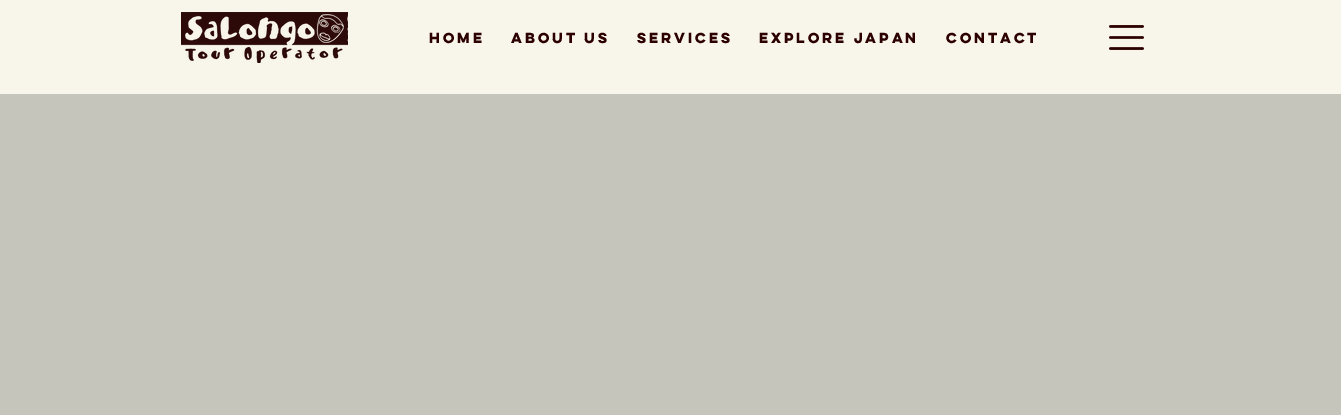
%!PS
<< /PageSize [1341 415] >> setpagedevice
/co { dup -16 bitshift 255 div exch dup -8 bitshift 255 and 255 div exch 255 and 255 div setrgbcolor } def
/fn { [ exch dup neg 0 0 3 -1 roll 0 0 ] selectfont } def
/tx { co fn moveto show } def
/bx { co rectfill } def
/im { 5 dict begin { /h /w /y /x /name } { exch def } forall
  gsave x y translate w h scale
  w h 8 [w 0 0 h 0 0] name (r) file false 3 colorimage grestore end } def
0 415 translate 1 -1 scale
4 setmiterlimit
0 0 1341 415 16#F8F6EB bx
(media/1.raw) 181 12 167 51 im
(media/2.raw) 1109 25 35 25 im
0 94 1341 321 16#C6C5BC bx
(home) 429 43 /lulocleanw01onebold-Bold 13 16#2D0000 tx
(about us) 511 43 /lulocleanw01onebold-Bold 13 16#2D0000 tx
(services) 637 43 /lulocleanw01onebold-Bold 13 16#2D0000 tx
(explore Japan) 759 43 /lulocleanw01onebold-Bold 13 16#2D0000 tx
(contact) 946 43 /lulocleanw01onebold-Bold 13 16#2D0000 tx
showpage
